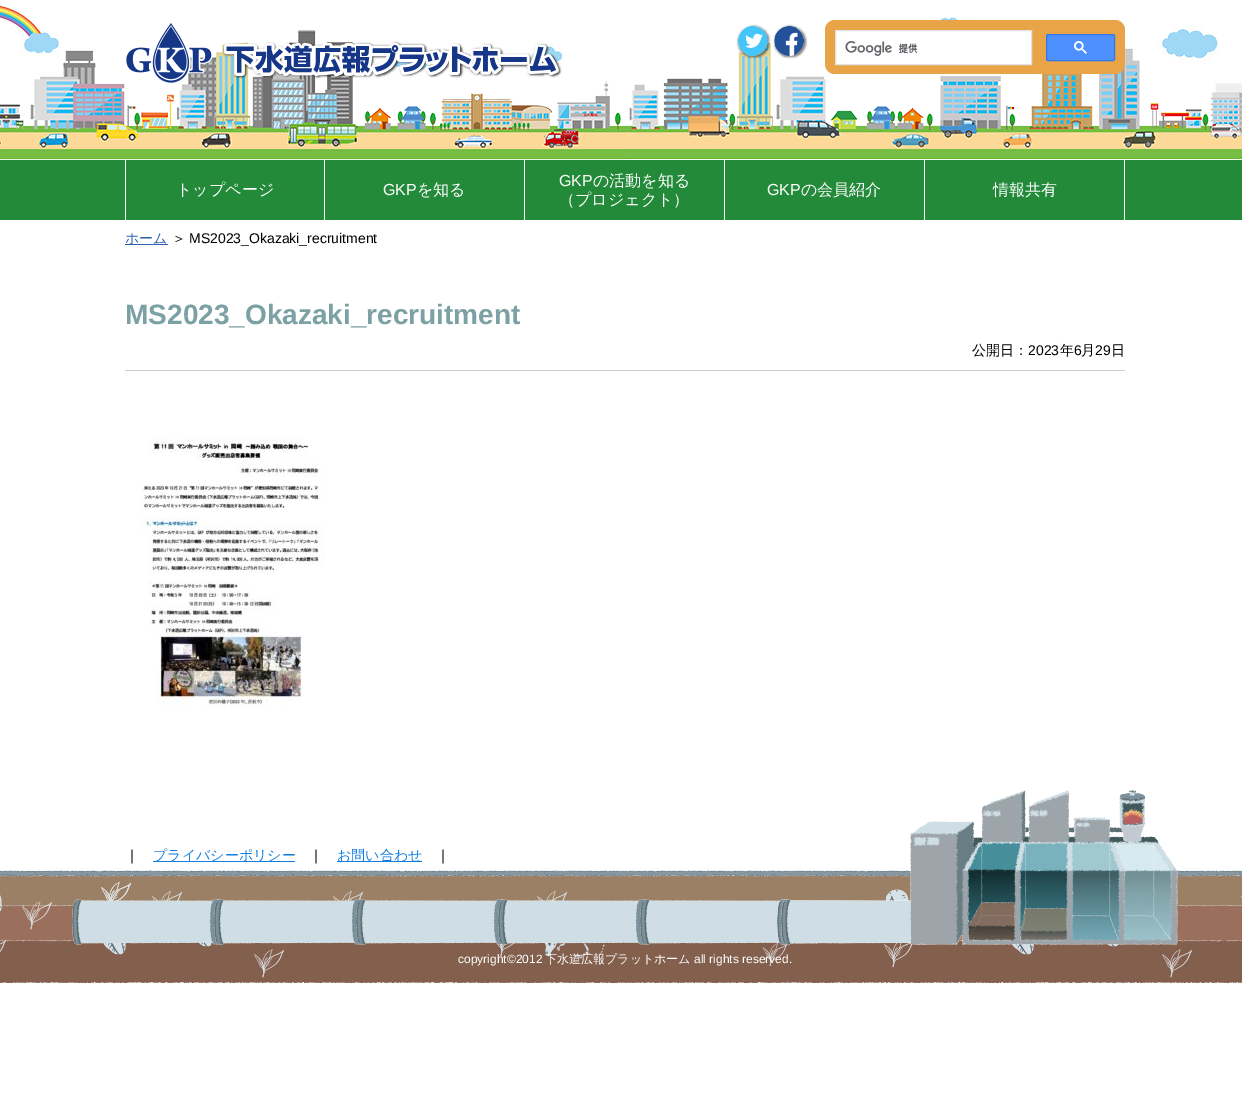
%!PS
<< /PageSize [1242 1114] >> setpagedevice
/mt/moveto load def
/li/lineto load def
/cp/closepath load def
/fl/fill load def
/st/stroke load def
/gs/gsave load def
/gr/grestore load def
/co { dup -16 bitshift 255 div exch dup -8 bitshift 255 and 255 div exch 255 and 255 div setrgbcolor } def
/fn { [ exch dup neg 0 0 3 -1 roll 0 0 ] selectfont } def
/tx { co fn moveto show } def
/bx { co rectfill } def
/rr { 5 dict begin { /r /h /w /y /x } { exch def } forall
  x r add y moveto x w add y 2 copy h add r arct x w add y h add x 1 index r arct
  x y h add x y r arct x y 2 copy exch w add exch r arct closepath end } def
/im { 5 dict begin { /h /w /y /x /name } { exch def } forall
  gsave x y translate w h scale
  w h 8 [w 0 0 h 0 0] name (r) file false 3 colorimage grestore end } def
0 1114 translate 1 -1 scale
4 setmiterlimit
0 0 1242 1114 16#FFFFFF bx
(media/1.raw) 0 1 1219 71 im
(media/2.raw) 0 30 1242 130 im
(media/3.raw) 126 23 436 60 im
(media/4.raw) 736 24 35 35 im
(media/5.raw) 773 24 35 35 im
16#EAA448 co
825 20 300 54 10 rr fl
16#FFFFFF co
835.5 30.5 mt 1031.5 30.5 li 1031.5 64.5 li 835.5 64.5 li cp gs fl gr
16#DFE1E5 co
st
(media/6.raw) 845 41 73 15 im
16#4D90FE co
1046.5 34.5 68 26 1.5 rr gs fl gr
16#3079ED co
st
(media/7.raw) 1074 41 13 13 im
0 160 1242 60 16#238A3A bx
324 160 1 60 16#FFFFFF bx
125 160 1 60 16#FFFFFF bx
524 160 1 60 16#FFFFFF bx
724 160 1 60 16#FFFFFF bx
924 160 1 60 16#FFFFFF bx
1124 160 1 60 16#FFFFFF bx
125 244 43 1 16#2E61AB bx
125 370 1000 1 16#CCCCCC bx
(media/8.raw) 141 437 184 272 im
(media/9.raw) 0 870 1242 114 im
(media/10.raw) 72 790 1106 155 im
153 861 142 1 16#127EE0 bx
337 861 85 1 16#127EE0 bx
(トップページ) 176 195 /WenQuanYiZenHei-Medium 16 16#FFFFFF tx
(GKP) 383 195 /LiberationSans-Regular 16 16#FFFFFF tx
(を知る) 417 195 /WenQuanYiZenHei-Medium 16 16#FFFFFF tx
(GKP) 559 186 /LiberationSans-Regular 16 16#FFFFFF tx
(の活動を知る) 593 186 /WenQuanYiZenHei-Medium 16 16#FFFFFF tx
(（プロジェクト）) 559 205 /WenQuanYiZenHei-Medium 16 16#FFFFFF tx
(GKP) 767 195 /LiberationSans-Regular 16 16#FFFFFF tx
(の会員紹介) 801 195 /WenQuanYiZenHei-Medium 16 16#FFFFFF tx
(情報共有) 993 195 /WenQuanYiZenHei-Medium 16 16#FFFFFF tx
(ホーム) 125 243 /WenQuanYiZenHei-Medium 14 16#2E61AB tx
(＞) 172 243 /WenQuanYiZenHei-Medium 14 16#000000 tx
(MS2023_Okazaki_recruitment) 189 243 /LiberationSans-Regular 14 16#000000 tx
(MS2023_Okazaki_recruitment) 125 324 /LiberationSans-Bold 28 16#7CA1A5 tx
(公開日：) 972 355 /WenQuanYiZenHei-Medium 14 16#000000 tx
(2023) 1028 355 /LiberationSans-Regular 14 16#000000 tx
(年) 1060 355 /WenQuanYiZenHei-Medium 14 16#000000 tx
(6) 1074 355 /LiberationSans-Regular 14 16#000000 tx
(月) 1081 355 /WenQuanYiZenHei-Medium 14 16#000000 tx
(29) 1095 355 /LiberationSans-Regular 14 16#000000 tx
(日) 1111 355 /WenQuanYiZenHei-Medium 14 16#000000 tx
(｜) 125 860 /WenQuanYiZenHei-Medium 14 16#000000 tx
(プライバシーポリシー) 153 860 /WenQuanYiZenHei-Medium 14 16#127EE0 tx
(｜) 309 860 /WenQuanYiZenHei-Medium 14 16#000000 tx
(お問い合わせ) 337 860 /WenQuanYiZenHei-Medium 14 16#127EE0 tx
(｜) 436 860 /WenQuanYiZenHei-Medium 14 16#000000 tx
(copyright©2012) 458 963 /LiberationSans-Regular 12 16#FFFFFF tx
(下水道広報プラットホーム) 545 963 /WenQuanYiZenHei-Medium 12 16#FFFFFF tx
(all rights reserved.) 694 963 /LiberationSans-Regular 12 16#FFFFFF tx
showpage
